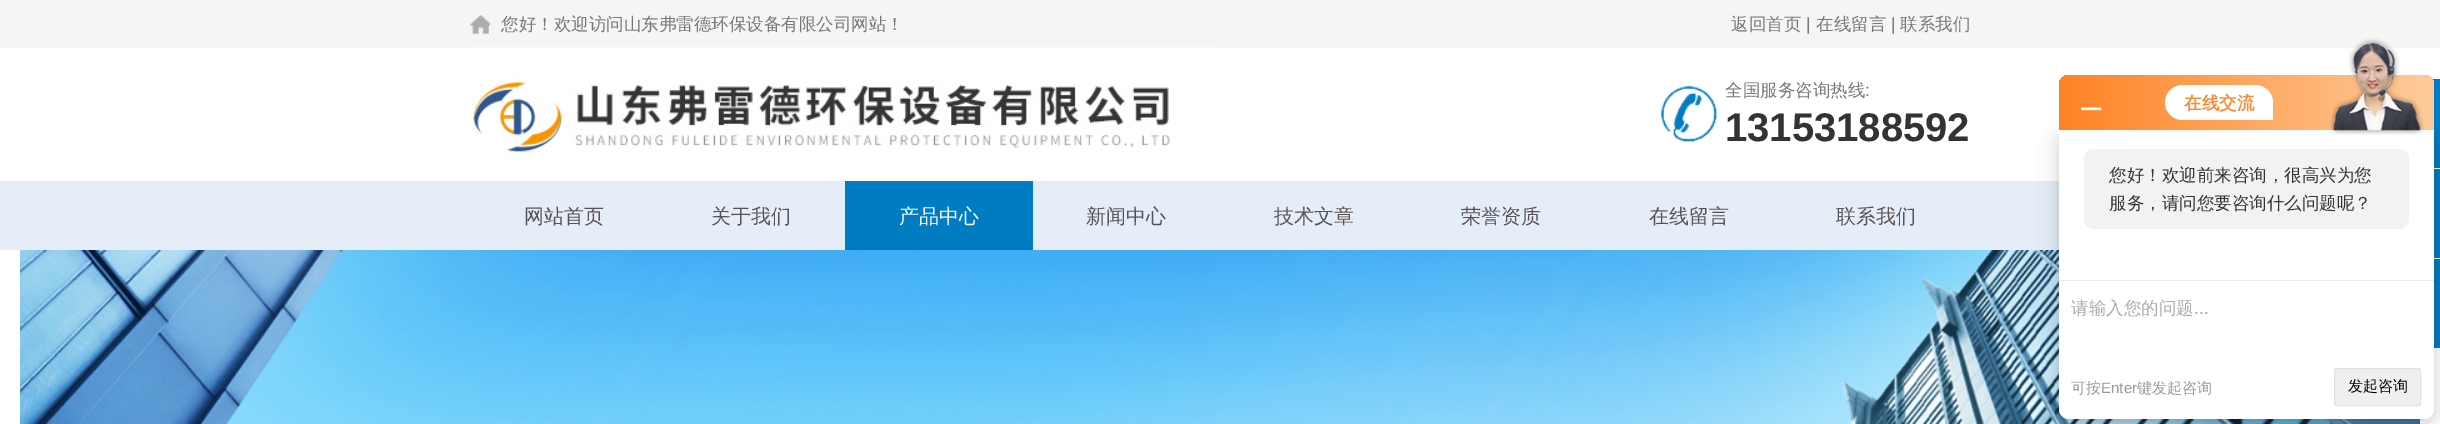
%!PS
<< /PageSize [2440 424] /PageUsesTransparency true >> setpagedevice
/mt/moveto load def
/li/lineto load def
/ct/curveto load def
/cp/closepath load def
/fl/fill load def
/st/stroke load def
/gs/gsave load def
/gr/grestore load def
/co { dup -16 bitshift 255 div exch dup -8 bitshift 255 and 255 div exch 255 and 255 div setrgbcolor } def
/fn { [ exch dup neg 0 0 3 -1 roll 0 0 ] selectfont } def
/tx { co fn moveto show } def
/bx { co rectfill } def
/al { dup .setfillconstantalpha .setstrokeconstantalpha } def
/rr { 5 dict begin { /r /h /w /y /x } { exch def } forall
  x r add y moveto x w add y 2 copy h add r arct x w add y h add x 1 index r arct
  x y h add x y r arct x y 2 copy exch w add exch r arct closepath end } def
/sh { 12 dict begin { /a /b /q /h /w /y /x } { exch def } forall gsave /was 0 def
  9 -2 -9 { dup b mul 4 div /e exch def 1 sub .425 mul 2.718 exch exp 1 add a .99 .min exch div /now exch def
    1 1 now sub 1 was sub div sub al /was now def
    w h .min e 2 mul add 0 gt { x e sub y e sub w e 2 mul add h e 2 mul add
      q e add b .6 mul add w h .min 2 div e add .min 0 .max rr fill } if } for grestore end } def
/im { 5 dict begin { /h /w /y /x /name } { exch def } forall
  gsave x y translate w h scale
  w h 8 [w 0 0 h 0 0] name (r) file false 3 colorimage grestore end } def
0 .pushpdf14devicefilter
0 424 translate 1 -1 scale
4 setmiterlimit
0 0 2440 424 16#FFFFFF bx
0 0 2440 48 16#F5F5F5 bx
(media/1.raw) 470 15 20 19 im
(media/2.raw) 470 47 753 109 im
(media/3.raw) 1661 86 56 56 im
0 181 2059 69 16#E5EDF8 bx
845 181 188 69 16#007CC2 bx
2432 79 8 89 16#007CC2 bx
2434 169 6 89 16#007CC2 bx
2434 259 6 89 16#007CC2 bx
(media/6.raw) 20 250 2400 174 im
16#000000 co
2059 135 375 289 10 10 .2 sh
gs 2069 75 mt 2424 75 li 2429.5 75 2434 79.5 2434 85 ct 2434 130 li 2059 130 li 2059 85 li 2059 79.5 2063.5 75 2069 75 ct cp clip newpath
<< /ShadingType 2 /ColorSpace /DeviceRGB /Coords [2059 103 2434 102] /Extend [true true] /Function << /FunctionType 2 /Domain [0 1] /C0 [1 .514 .141] /C1 [.996 .796 .612] /N 1 >> >> shfill gr
(media/4.raw) 2081 107 21 4 im
16#FFFFFF co
2182.5 85 mt 2255.5 85 li 2265 85 2273 93 2273 102.5 ct 2273 120 li 2182.5 120 li 2173 120 2165 112 2165 102.5 ct 2165 93 2173 85 2182.5 85 ct cp fl
2059 130 mt 2434 130 li 2434 409 li 2434 414.5 2429.5 419 2424 419 ct 2069 419 li 2063.5 419 2059 414.5 2059 409 ct cp fl
(media/5.raw) 2329 38 95 97 im
16#F2F2F2 co
2084 149 325 80 10 rr fl
2059 280 375 1 16#EAEAEA bx
16#F0EFED co
2334.5 368.5 86 37 2 rr gs fl gr
16#E2E2E2 co
st
(您好！欢迎访问山东弗雷德环保设备有限公司网站！) 501 30 /WenQuanYiZenHei-Medium 17.5 16#777777 tx
(返回首页) 1731 30 /WenQuanYiZenHei-Medium 17.5 16#777777 tx
(|) 1806 30 /LiberationSans-Regular 17.5 16#777777 tx
(在线留言) 1816 30 /WenQuanYiZenHei-Medium 17.5 16#777777 tx
(|) 1891 30 /LiberationSans-Regular 17.5 16#777777 tx
(联系我们) 1900 30 /WenQuanYiZenHei-Medium 17.5 16#777777 tx
(全国服务咨询热线) 1725 96 /WenQuanYiZenHei-Medium 17.5 16#777777 tx
(:) 1865 96 /LiberationSans-Regular 17.5 16#777777 tx
(13153188592) 1725 141 /LiberationSans-Bold 40 16#333333 tx
(网站首页) 524 223 /WenQuanYiZenHei-Medium 20 16#575354 tx
(关于我们) 711 223 /WenQuanYiZenHei-Medium 20 16#575354 tx
(产品中心) 899 223 /WenQuanYiZenHei-Medium 20 16#FFFFFF tx
(新闻中心) 1086 223 /WenQuanYiZenHei-Medium 20 16#575354 tx
(技术文章) 1274 223 /WenQuanYiZenHei-Medium 20 16#575354 tx
(荣誉资质) 1461 223 /WenQuanYiZenHei-Medium 20 16#575354 tx
(在线留言) 1649 223 /WenQuanYiZenHei-Medium 20 16#575354 tx
(联系我们) 1836 223 /WenQuanYiZenHei-Medium 20 16#575354 tx
(在线交流) 2184 109 /WenQuanYiZenHei-Bold 17.5 16#FB8B36 tx
(您好！欢迎前来咨询，很高兴为您) 2109 181 /WenQuanYiZenHei-Medium 17.5 16#333333 tx
(服务，请问您要咨询什么问题呢？) 2109 209 /WenQuanYiZenHei-Medium 17.5 16#333333 tx
(请输入您的问题) 2071 314 /WenQuanYiZenHei-Medium 17.5 16#AAAAAA tx
(...) 2194 314 /LiberationSans-Regular 17.5 16#AAAAAA tx
(可按) 2071 393 /WenQuanYiZenHei-Medium 15 16#999999 tx
(Enter) 2101 393 /LiberationSans-Regular 15 16#999999 tx
(键发起咨询) 2137 393 /WenQuanYiZenHei-Medium 15 16#999999 tx
(发起咨询) 2348 391 /WenQuanYiZenHei-Medium 15 16#000000 tx
.poppdf14devicefilter showpage
